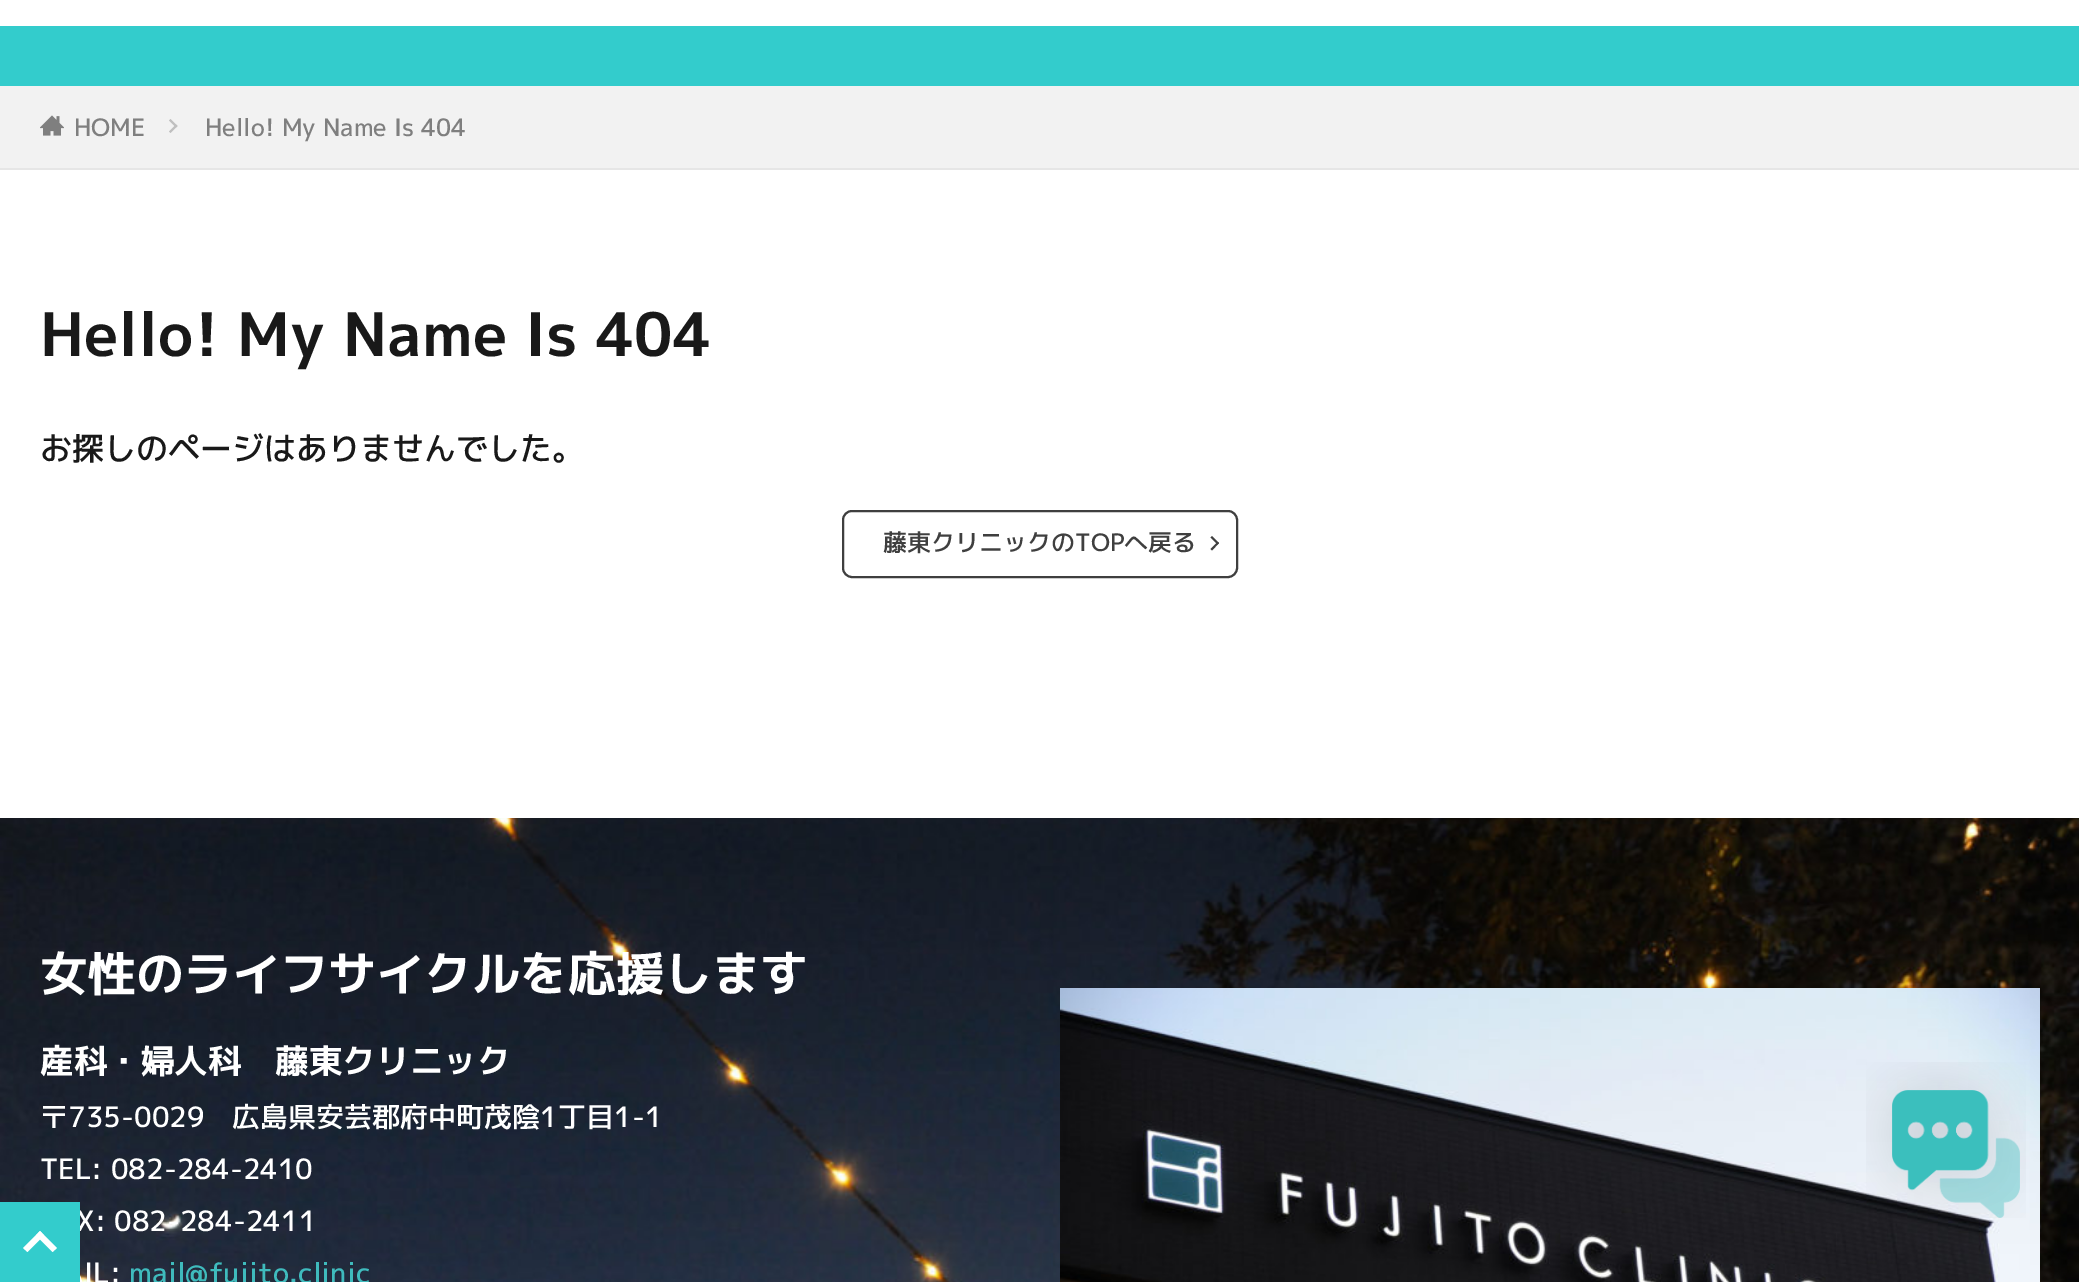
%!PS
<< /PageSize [2079 1282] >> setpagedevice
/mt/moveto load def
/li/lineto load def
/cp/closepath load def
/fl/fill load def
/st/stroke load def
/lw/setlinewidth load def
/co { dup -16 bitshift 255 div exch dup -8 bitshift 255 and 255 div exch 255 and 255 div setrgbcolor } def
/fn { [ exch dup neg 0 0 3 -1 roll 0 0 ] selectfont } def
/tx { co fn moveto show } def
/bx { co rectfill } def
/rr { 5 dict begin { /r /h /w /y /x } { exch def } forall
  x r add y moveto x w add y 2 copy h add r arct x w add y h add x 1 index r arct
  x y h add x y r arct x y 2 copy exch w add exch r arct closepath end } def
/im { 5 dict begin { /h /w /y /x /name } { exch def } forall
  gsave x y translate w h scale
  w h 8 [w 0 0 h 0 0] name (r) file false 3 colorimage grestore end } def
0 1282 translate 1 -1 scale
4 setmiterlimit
0 0 2079 1282 16#FFFFFF bx
0 26 2079 60 16#33CCCC bx
0 86 2079 82 16#F2F2F2 bx
0 168 2079 2 16#E6E6E6 bx
(media/1.raw) 40 115 24 21 im
16#BFBFBF co
170.5 119 mt 177.5 126 li 176 127.5 li 169 120.5 li cp fl
176 124.5 mt 177.5 126 li 170.5 133 li 169 131.5 li cp fl
16#3F3F3F co
2 lw
843 511 394 66 9 rr st
1212 536 mt 1219 543 li 1217.5 544.5 li 1210.5 537.5 li cp fl
1217.5 542 mt 1219 543 li 1212 550.5 li 1210.5 549 li cp fl
(media/2.raw) 0 818 2079 464 im
(media/3.raw) 1060 988 980 294 im
(media/4.raw) 1866 1062 160 156 im
(HOME) 74 136 /MPLUS1p-Medium 24 16#7F7F7F tx
(Hello! My Name Is 404) 205 136 /MPLUS1p-Medium 24 16#7F7F7F tx
(Hello! My Name Is 404) 40 356 /MPLUS1p-Bold 60 16#191919 tx
(お探しのページはありませんでした。) 40 460 /MPLUS1p-Medium 32 16#191919 tx
(藤東クリニックのTOPへ戻る) 883 551 /MPLUS1p-Medium 24 16#3F3F3F tx
(女性のライフサイクルを応援します) 40 991 /MPLUS1p-Bold 48 16#FFFFFF tx
(産科・婦人科　藤東クリニック) 40 1073 /MPLUS1p-Bold 33.6 16#FFFFFF tx
(〒735-0029　広島県安芸郡府中町茂陰1丁目1-1) 40 1127 /MPLUS1p-Medium 28 16#FFFFFF tx
(TEL: 082-284-2410) 40 1179 /MPLUS1p-Medium 28 16#FFFFFF tx
(X: 082-284-2411) 76 1231 /MPLUS1p-Medium 28 16#FFFFFF tx
(AIL:) 64 1283 /MPLUS1p-Medium 28 16#FFFFFF tx
(mail@fujito.clinic) 129 1283 /MPLUS1p-Medium 28 16#3FBBBD tx
0 1202 80 80 16#33CCCC bx
16#FFFFFF co
23 1248 mt 40 1231 li 44 1235.5 li 27.5 1252 li cp fl
36 1235.5 mt 40 1231 li 57 1248 li 52.5 1252 li cp fl
showpage
